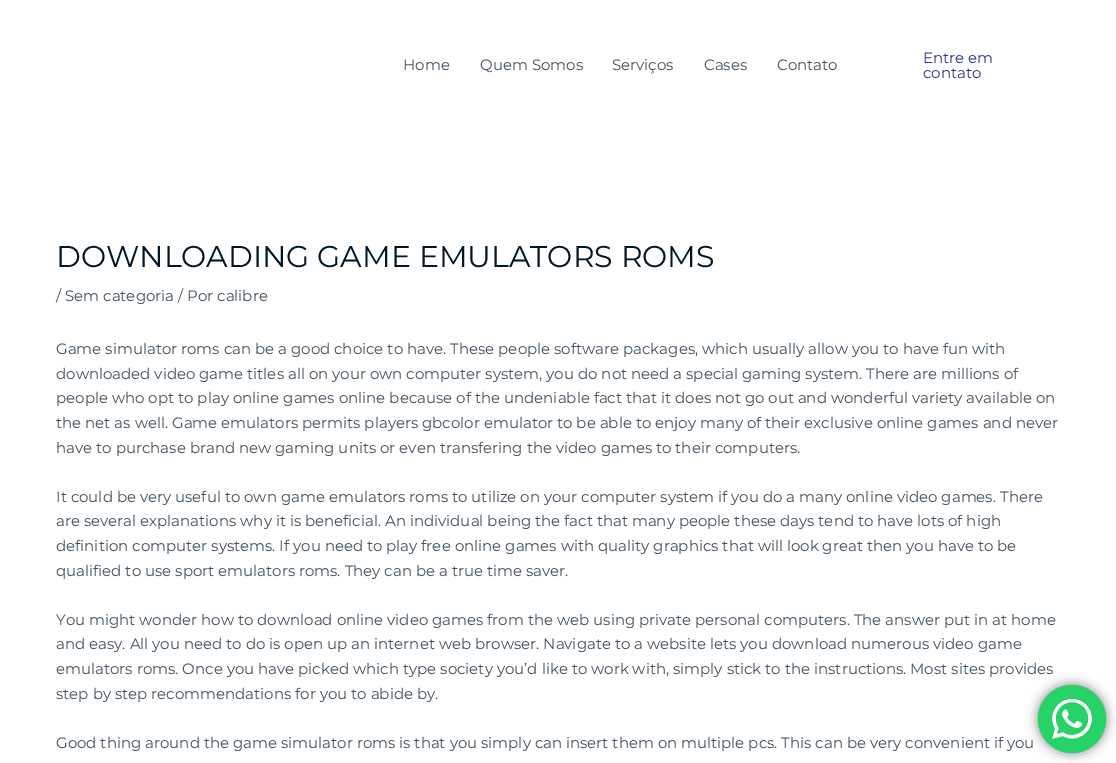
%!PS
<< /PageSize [1116 763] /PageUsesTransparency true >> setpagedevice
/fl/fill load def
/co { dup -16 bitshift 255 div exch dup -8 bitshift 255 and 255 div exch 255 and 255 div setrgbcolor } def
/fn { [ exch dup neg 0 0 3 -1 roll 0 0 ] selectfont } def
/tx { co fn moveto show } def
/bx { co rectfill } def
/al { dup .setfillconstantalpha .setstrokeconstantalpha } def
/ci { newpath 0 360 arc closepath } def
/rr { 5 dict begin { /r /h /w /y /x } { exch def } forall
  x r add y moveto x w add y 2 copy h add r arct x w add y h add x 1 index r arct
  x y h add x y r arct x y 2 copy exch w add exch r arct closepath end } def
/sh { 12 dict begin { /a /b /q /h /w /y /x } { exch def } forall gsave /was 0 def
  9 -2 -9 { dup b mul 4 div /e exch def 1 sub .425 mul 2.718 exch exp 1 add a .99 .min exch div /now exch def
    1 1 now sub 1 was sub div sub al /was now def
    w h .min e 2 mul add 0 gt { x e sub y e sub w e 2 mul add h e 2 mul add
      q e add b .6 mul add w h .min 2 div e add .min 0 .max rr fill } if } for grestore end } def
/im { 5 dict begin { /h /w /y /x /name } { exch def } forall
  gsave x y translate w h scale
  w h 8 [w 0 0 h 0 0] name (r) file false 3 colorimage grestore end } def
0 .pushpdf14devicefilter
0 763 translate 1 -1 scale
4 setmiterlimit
0 0 1116 763 16#FFFFFF bx
16#000000 co
1038 685 68 68 34 5.5 .5 sh
16#25D366 co
1072 719 34 ci fl
(media/1.raw) 1052 699 40 40 im
(Home) 403 70 /Montserrat-Regular 15 16#41505D tx
(Quem Somos) 480 70 /Montserrat-Regular 15 16#41505D tx
(Serviços) 612 70 /Montserrat-Regular 15 16#41505D tx
(Cases) 704 70 /Montserrat-Regular 15 16#41505D tx
(Contato) 777 70 /Montserrat-Regular 15 16#41505D tx
(Entre em) 923 63 /Montserrat-Regular 15 16#2A338F tx
(contato) 923 78 /Montserrat-Regular 15 16#2A338F tx
(DOWNLOADING GAME EMULATORS ROMS) 56 267 /Montserrat-Regular 30 16#011627 tx
(/ Sem categoria / Por calibre) 56 301 /Montserrat-Regular 15 16#41505D tx
(Game simulator roms can be a good choice to have. These people software packages, which usually allow you to have fun with) 56 354 /Montserrat-Regular 15 16#41505D tx
(downloaded video game titles all on your own computer system, you do not need a special gaming system. There are millions of) 56 379 /Montserrat-Regular 15 16#41505D tx
(people who opt to play online games online because of the undeniable fact that it does not go out and wonderful variety available on) 56 403 /Montserrat-Regular 15 16#41505D tx
(the net as well. Game emulators permits players gbcolor emulator to be able to enjoy many of their exclusive online games and never) 56 428 /Montserrat-Regular 15 16#41505D tx
(have to purchase brand new gaming units or even transfering the video games to their computers.) 56 453 /Montserrat-Regular 15 16#41505D tx
(It could be very useful to own game emulators roms to utilize on your computer system if you do a many online video games. There) 56 502 /Montserrat-Regular 15 16#41505D tx
(are several explanations why it is beneficial. An individual being the fact that many people these days tend to have lots of high) 56 526 /Montserrat-Regular 15 16#41505D tx
(definition computer systems. If you need to play free online games with quality graphics that will look great then you have to be) 56 551 /Montserrat-Regular 15 16#41505D tx
(qualified to use sport emulators roms. They can be a true time saver.) 56 576 /Montserrat-Regular 15 16#41505D tx
(You might wonder how to download online video games from the web using private personal computers. The answer put in at home) 56 625 /Montserrat-Regular 15 16#41505D tx
(and easy. All you need to do is open up an internet web browser. Navigate to a website lets you download numerous video game) 56 649 /Montserrat-Regular 15 16#41505D tx
(emulators roms. Once you have picked which type society you’d like to work with, simply stick to the instructions. Most sites provides) 56 674 /Montserrat-Regular 15 16#41505D tx
(step by step recommendations for you to abide by.) 56 699 /Montserrat-Regular 15 16#41505D tx
(Good thing around the game simulator roms is that you simply can insert them on multiple pcs. This can be very convenient if you) 56 748 /Montserrat-Regular 15 16#41505D tx
.poppdf14devicefilter showpage
